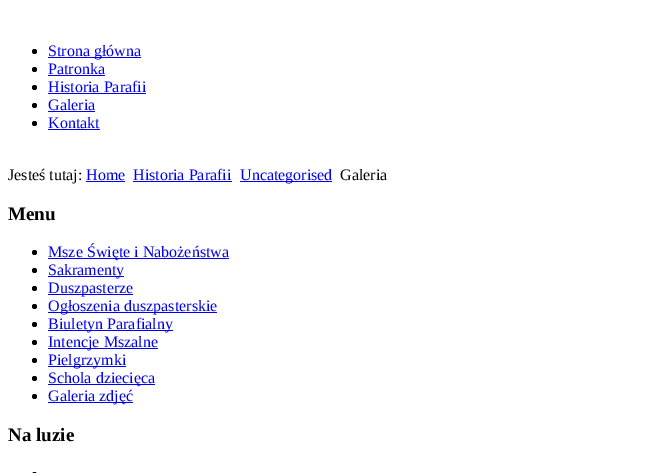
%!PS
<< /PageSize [648 473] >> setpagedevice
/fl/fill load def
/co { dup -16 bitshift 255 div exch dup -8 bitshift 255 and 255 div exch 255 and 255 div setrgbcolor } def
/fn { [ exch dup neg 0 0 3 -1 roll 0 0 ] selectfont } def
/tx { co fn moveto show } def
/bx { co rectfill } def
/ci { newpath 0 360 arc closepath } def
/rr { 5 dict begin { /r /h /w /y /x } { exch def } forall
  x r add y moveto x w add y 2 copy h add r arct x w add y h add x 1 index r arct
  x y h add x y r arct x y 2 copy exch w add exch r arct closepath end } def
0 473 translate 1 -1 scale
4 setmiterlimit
0 0 648 473 16#FFFFFF bx
16#000000 co
34.5 51.5 2.5 ci fl
48 57 93 1 16#0000EE bx
16#000000 co
34.5 69.5 2.5 ci fl
48 75 57 1 16#0000EE bx
16#000000 co
34.5 87.5 2.5 ci fl
48 93 98 1 16#0000EE bx
16#000000 co
34.5 105.5 2.5 ci fl
48 111 47 1 16#0000EE bx
16#000000 co
34.5 123.5 2.5 ci fl
48 129 52 1 16#0000EE bx
86 181 39 1 16#0000EE bx
133 181 99 1 16#0000EE bx
240 181 92 1 16#0000EE bx
16#000000 co
34.5 252.5 2.5 ci fl
48 258 181 1 16#0000EE bx
16#000000 co
34.5 270.5 2.5 ci fl
48 276 76 1 16#0000EE bx
16#000000 co
34.5 288.5 2.5 ci fl
48 294 85 1 16#0000EE bx
16#000000 co
34.5 306.5 2.5 ci fl
48 312 169 1 16#0000EE bx
16#000000 co
34.5 324.5 2.5 ci fl
48 330 125 1 16#0000EE bx
16#000000 co
34.5 342.5 2.5 ci fl
48 348 110 1 16#0000EE bx
16#000000 co
34.5 360.5 2.5 ci fl
48 366 78 1 16#0000EE bx
16#000000 co
34.5 378.5 2.5 ci fl
48 384 107 1 16#0000EE bx
16#000000 co
34.5 396.5 2.5 ci fl
48 402 85 1 16#0000EE bx
16#000000 co
32 472 5 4 2.5 rr fl
(Strona główna) 48 56 /LiberationSerif-Regular 16 16#0000EE tx
(Patronka) 48 74 /LiberationSerif-Regular 16 16#0000EE tx
(Historia Parafii) 48 92 /LiberationSerif-Regular 16 16#0000EE tx
(Galeria) 48 110 /LiberationSerif-Regular 16 16#0000EE tx
(Kontakt) 48 128 /LiberationSerif-Regular 16 16#0000EE tx
(Jesteś tutaj:) 8 180 /LiberationSerif-Regular 16 16#000000 tx
(Home) 86 180 /LiberationSerif-Regular 16 16#0000EE tx
(Historia Parafii) 133 180 /LiberationSerif-Regular 16 16#0000EE tx
(Uncategorised) 240 180 /LiberationSerif-Regular 16 16#0000EE tx
(Galeria) 340 180 /LiberationSerif-Regular 16 16#000000 tx
(Menu) 8 220 /LiberationSerif-Bold 19 16#000000 tx
(Msze Święte i Nabożeństwa) 48 257 /LiberationSerif-Regular 16 16#0000EE tx
(Sakramenty) 48 275 /LiberationSerif-Regular 16 16#0000EE tx
(Duszpasterze) 48 293 /LiberationSerif-Regular 16 16#0000EE tx
(Ogłoszenia duszpasterskie) 48 311 /LiberationSerif-Regular 16 16#0000EE tx
(Biuletyn Parafialny) 48 329 /LiberationSerif-Regular 16 16#0000EE tx
(Intencje Mszalne) 48 347 /LiberationSerif-Regular 16 16#0000EE tx
(Pielgrzymki) 48 365 /LiberationSerif-Regular 16 16#0000EE tx
(Schola dziecięca) 48 383 /LiberationSerif-Regular 16 16#0000EE tx
(Galeria zdjęć) 48 401 /LiberationSerif-Regular 16 16#0000EE tx
(Na luzie) 8 441 /LiberationSerif-Bold 19 16#000000 tx
showpage
